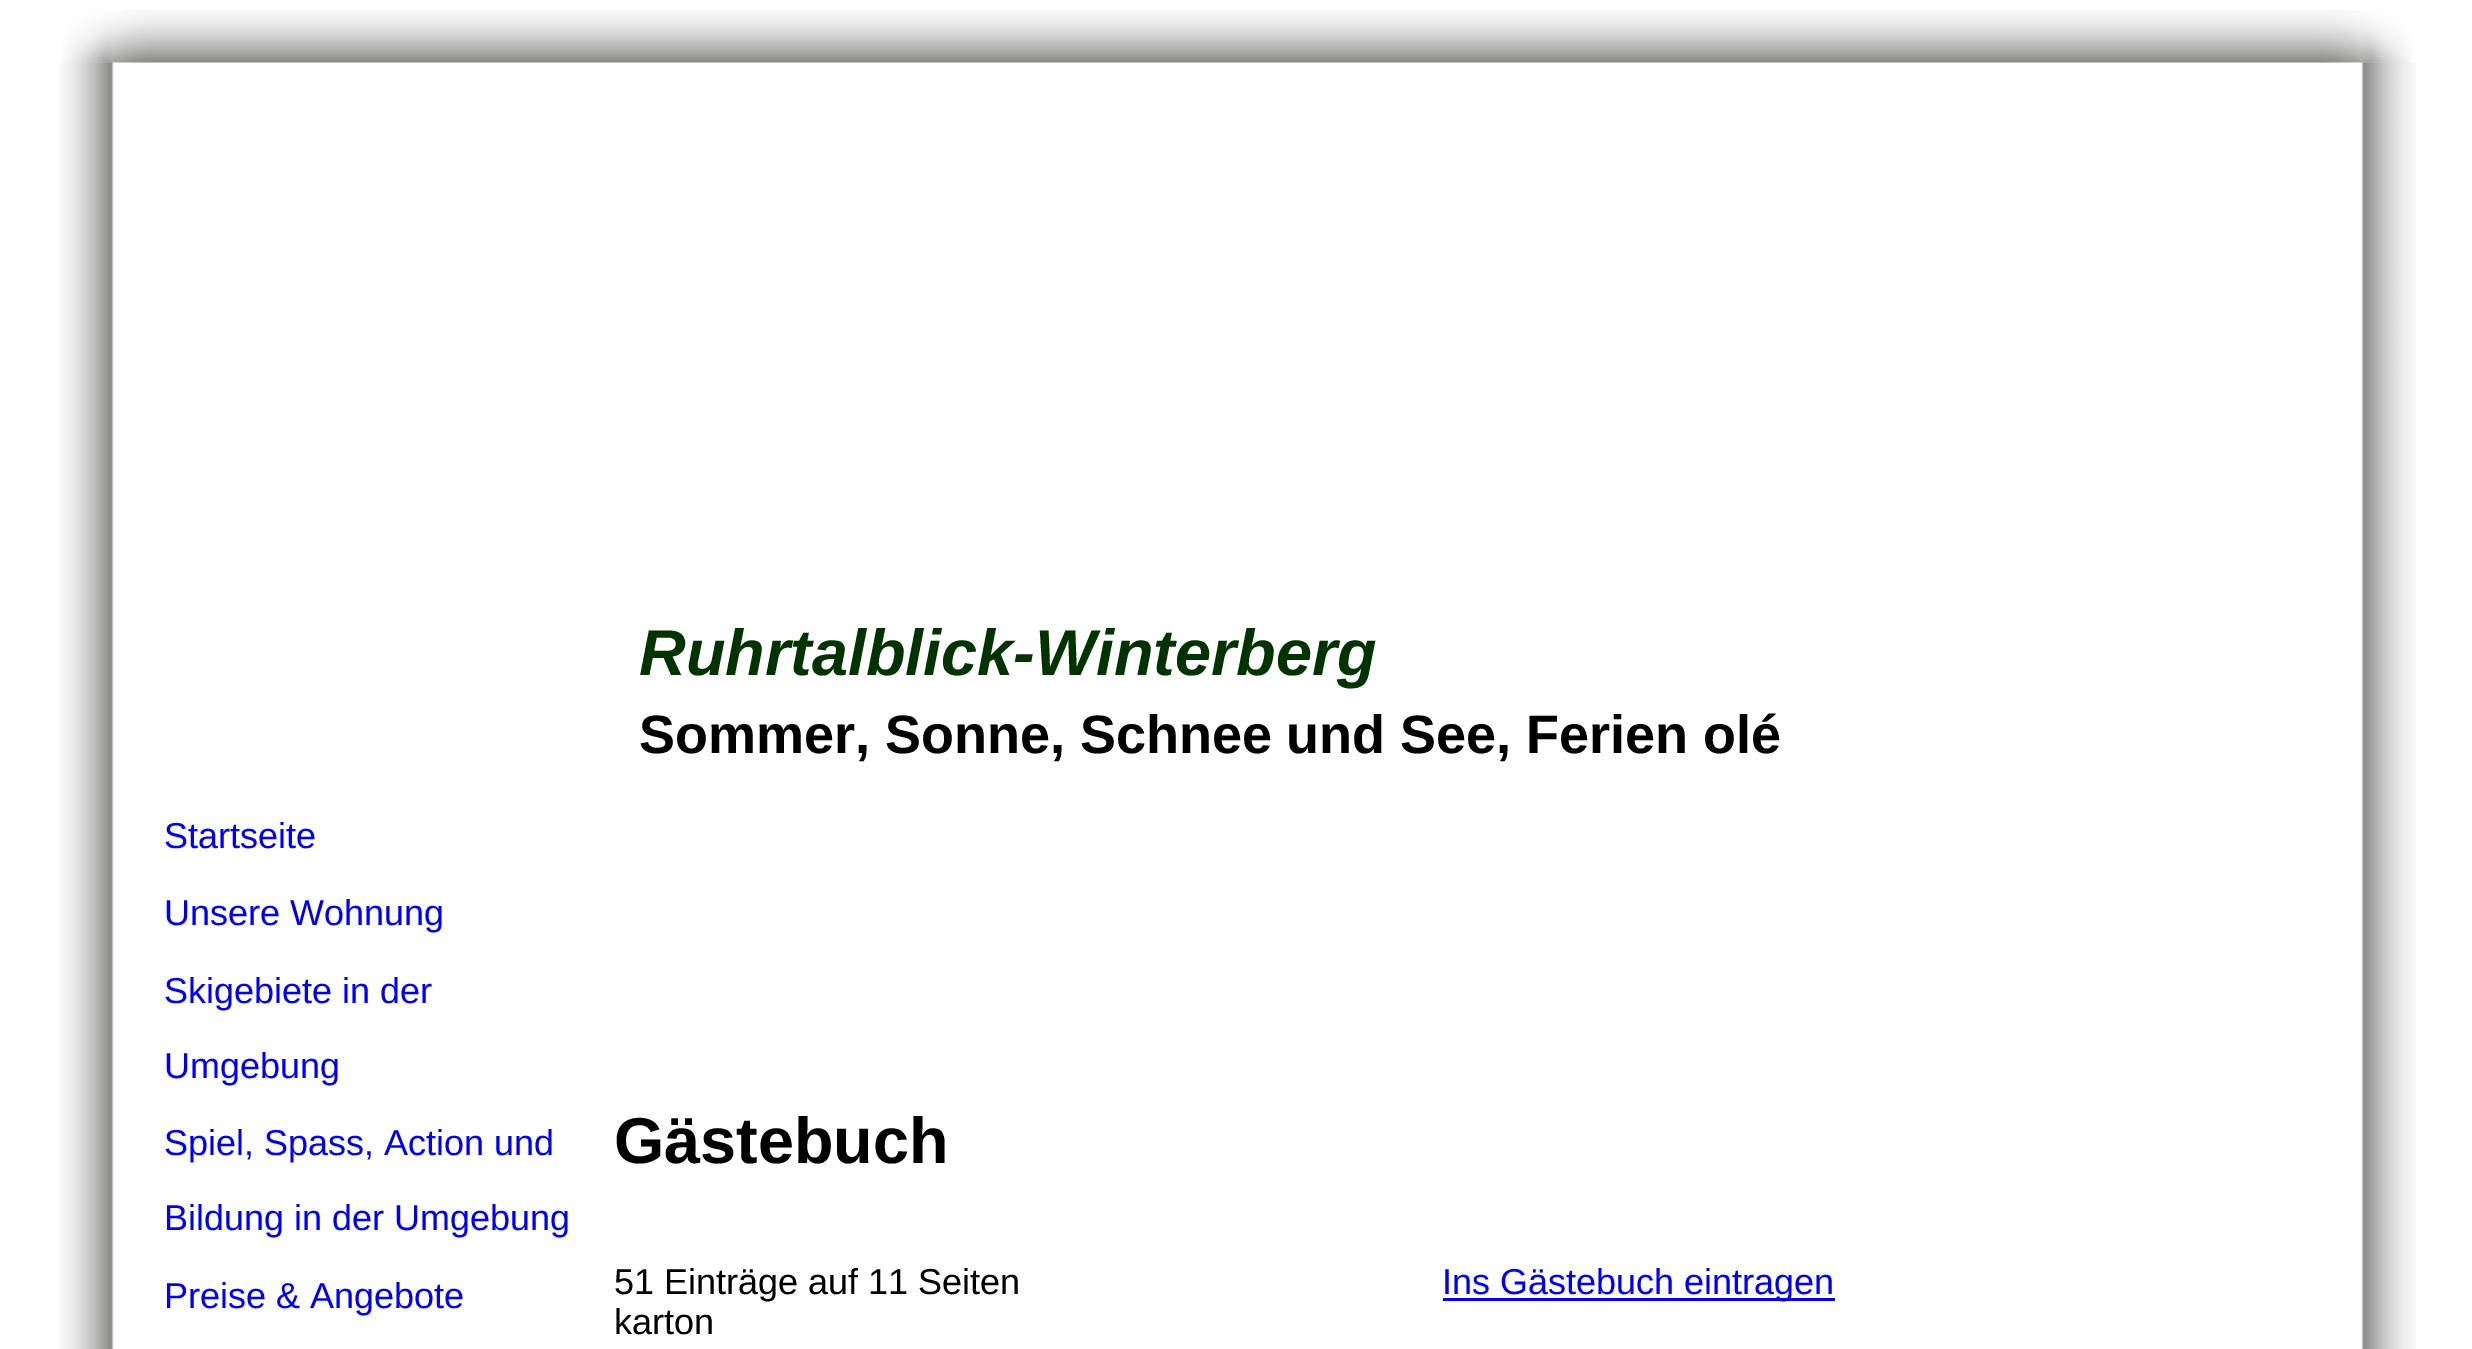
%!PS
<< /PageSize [2472 1349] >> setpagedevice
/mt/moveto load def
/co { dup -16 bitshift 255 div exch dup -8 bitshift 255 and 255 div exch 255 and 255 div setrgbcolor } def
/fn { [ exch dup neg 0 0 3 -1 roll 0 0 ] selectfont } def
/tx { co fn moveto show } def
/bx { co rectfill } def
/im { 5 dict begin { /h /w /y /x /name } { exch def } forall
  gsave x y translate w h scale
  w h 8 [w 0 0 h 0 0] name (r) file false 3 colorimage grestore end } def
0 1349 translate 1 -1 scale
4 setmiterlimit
0 0 2472 1349 16#FFFFFF bx
(media/2.raw) 59 62 2357 1287 im
(media/1.raw) 62 10 2351 53 im
1443 1298 392 3 16#0000EE bx
(Ruhrtalblick-Winterberg) 639 675 /LiberationSans-BoldItalic 64.75 16#003300 tx
/LiberationSans-Bold 54 fn
16#000000 co
639 753 mt -.25 0 32 (Sommer, Sonne, Schnee und See, Ferien olé) widthshow
(Startseite) 164 848 /LiberationSans-Regular 36 16#0000EE tx
(Unsere Wohnung) 164 925 /LiberationSans-Regular 36 16#0000EE tx
(Skigebiete in der) 164 1003 /LiberationSans-Regular 36 16#0000EE tx
(Umgebung) 164 1078 /LiberationSans-Regular 36 16#0000EE tx
(Spiel, Spass, Action und) 164 1155 /LiberationSans-Regular 36 16#0000EE tx
(Bildung in der Umgebung) 164 1230 /LiberationSans-Regular 36 16#0000EE tx
(Preise & Angebote) 164 1308 /LiberationSans-Regular 36 16#0000EE tx
(Gästebuch) 614 1163 /LiberationSans-Bold 64.75 16#000000 tx
(51 Einträge auf 11 Seiten) 614 1294 /LiberationSans-Regular 36 16#000000 tx
(Ins Gästebuch eintragen) 1442 1294 /LiberationSans-Regular 36 16#0000EE tx
(karton) 614 1334 /LiberationSans-Regular 36 16#000000 tx
showpage
